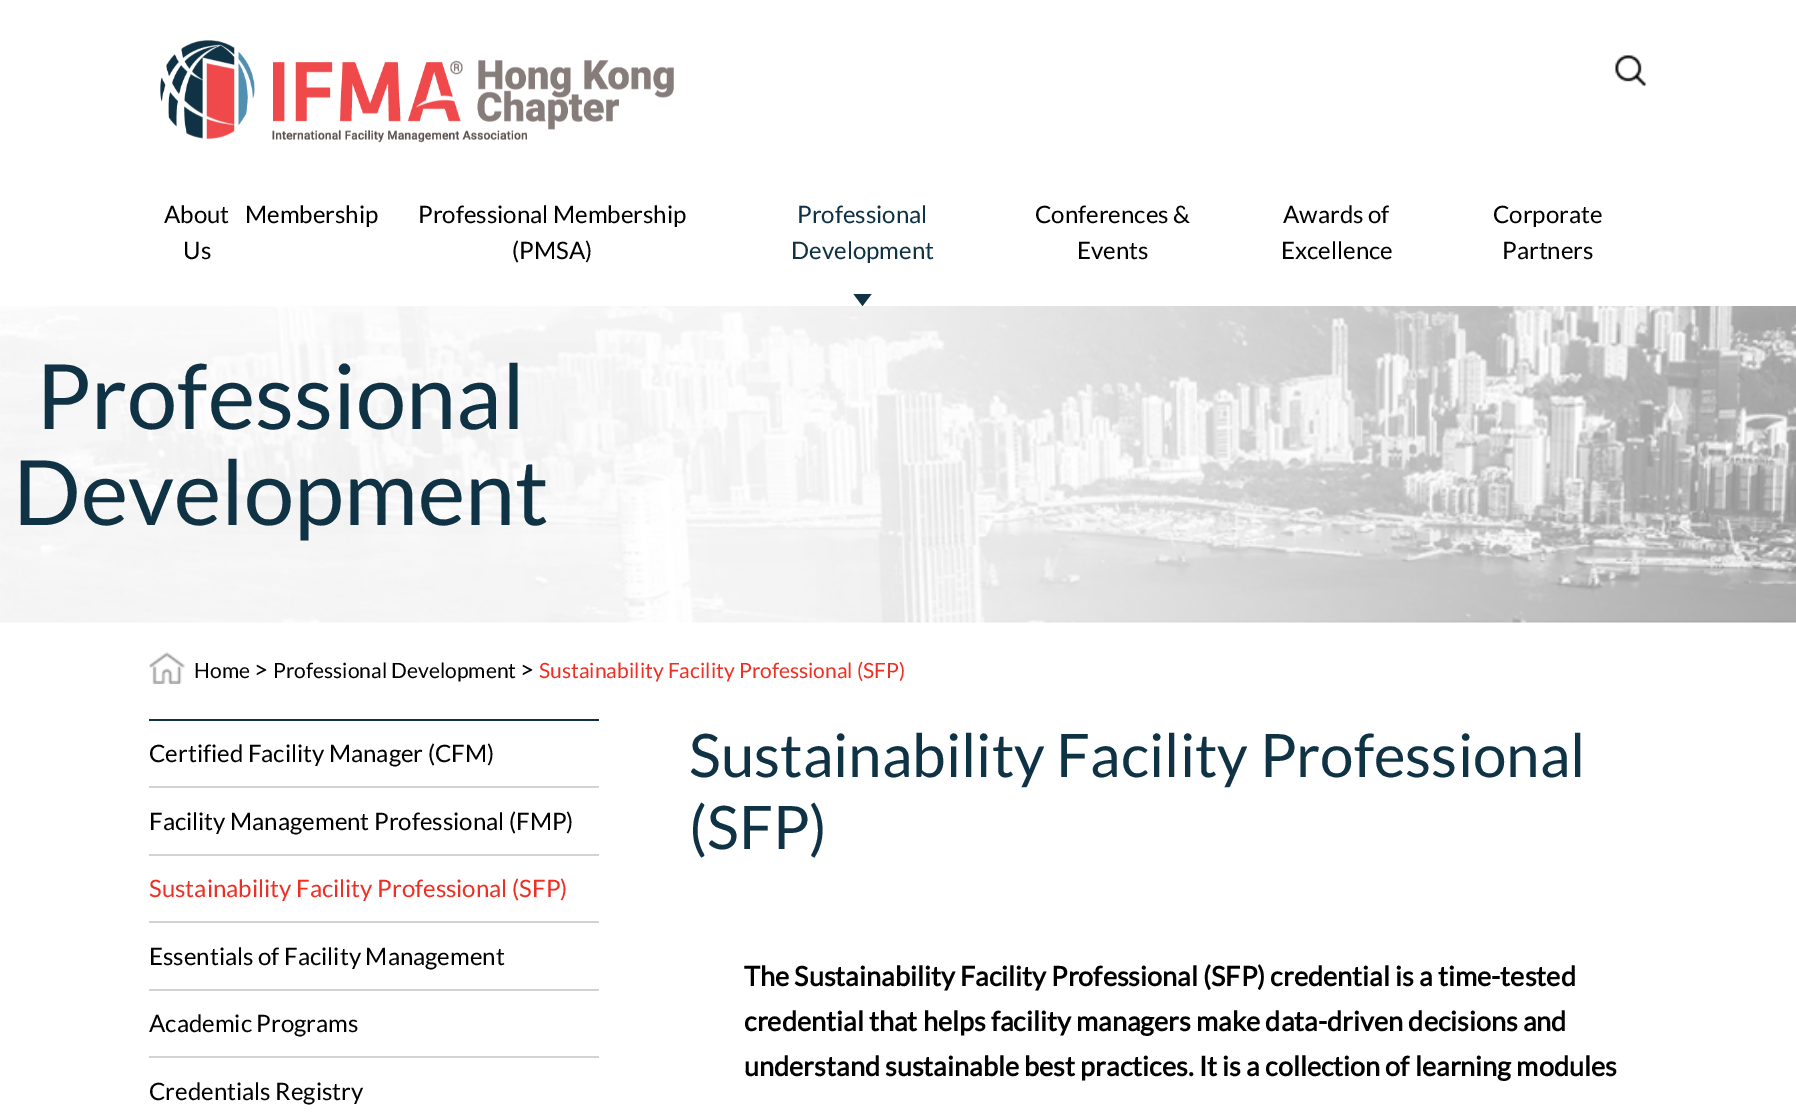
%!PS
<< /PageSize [1796 1113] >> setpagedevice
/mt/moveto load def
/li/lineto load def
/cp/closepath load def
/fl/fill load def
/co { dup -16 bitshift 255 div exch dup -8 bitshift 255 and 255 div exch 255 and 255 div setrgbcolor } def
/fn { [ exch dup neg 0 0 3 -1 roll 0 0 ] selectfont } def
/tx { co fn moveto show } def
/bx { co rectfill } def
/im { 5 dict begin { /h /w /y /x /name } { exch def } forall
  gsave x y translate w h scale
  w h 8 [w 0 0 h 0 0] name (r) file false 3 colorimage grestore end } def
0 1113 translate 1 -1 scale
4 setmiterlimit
0 0 1796 1113 16#FFFFFF bx
(media/1.raw) 160 40 514 103 im
(media/2.raw) 1615 55 31 31 im
16#0F3245 co
853.5 294 mt 871.5 294 li 862.5 306 li cp fl
(media/3.raw) 0 306 1796 317 im
(media/4.raw) 149 652 36 32 im
149 719 450 2 16#0F3245 bx
149 786 450 2 16#D3D3D3 bx
149 854 450 2 16#D3D3D3 bx
149 921 450 2 16#D3D3D3 bx
149 989 450 2 16#D3D3D3 bx
149 1056 450 2 16#D3D3D3 bx
(About) 164 223 /Lato-Regular 24 16#000000 tx
(Us) 183 259 /Lato-Regular 24 16#000000 tx
(Membership) 245 223 /Lato-Regular 24 16#000000 tx
(Professional Membership) 418 223 /Lato-Regular 24 16#000000 tx
(\(PMSA\)) 512 259 /Lato-Regular 24 16#000000 tx
(Professional) 797 223 /Lato-Regular 24 16#0F3245 tx
(Development) 791 259 /Lato-Regular 24 16#0F3245 tx
(Conferences &) 1035 223 /Lato-Regular 24 16#000000 tx
(Events) 1077 259 /Lato-Regular 24 16#000000 tx
(Awards of) 1283 223 /Lato-Regular 24 16#000000 tx
(Excellence) 1281 259 /Lato-Regular 24 16#000000 tx
(Corporate) 1493 223 /Lato-Regular 24 16#000000 tx
(Partners) 1502 259 /Lato-Regular 24 16#000000 tx
(Professional) 36 429 /Lato-Regular 90 16#0F3245 tx
(Development) 13 525 /Lato-Regular 90 16#0F3245 tx
(Home) 194 678 /Lato-Regular 21 16#000000 tx
(>) 254 678 /Lato-Regular 24 16#000000 tx
(Professional Development) 273 678 /Lato-Regular 21 16#000000 tx
(>) 520 678 /Lato-Regular 24 16#000000 tx
(Sustainability Facility Professional \(SFP\)) 539 678 /Lato-Regular 21 16#EE3024 tx
(Certified Facility Manager \(CFM\)) 149 762 /Lato-Regular 24 16#000000 tx
(Facility Management Professional \(FMP\)) 149 830 /Lato-Regular 24 16#000000 tx
(Sustainability Facility Professional \(SFP\)) 149 897 /Lato-Regular 24 16#EE3024 tx
(Essentials of Facility Management) 149 965 /Lato-Regular 24 16#000000 tx
(Academic Programs) 149 1032 /Lato-Regular 24 16#000000 tx
(Credentials Registry) 149 1100 /Lato-Regular 24 16#000000 tx
(Sustainability Facility Professional) 689 777 /Lato-Regular 60 16#0F3245 tx
(\(SFP\)) 689 849 /Lato-Regular 60 16#0F3245 tx
(The Sustainability Facility Professional \(SFP\) credential is a time-tested) 744 986 /Lato-Bold 27 16#000000 tx
(credential that helps facility managers make data-driven decisions and) 744 1031 /Lato-Bold 27 16#000000 tx
(understand sustainable best practices. It is a collection of learning modules) 744 1076 /Lato-Bold 27 16#000000 tx
showpage
